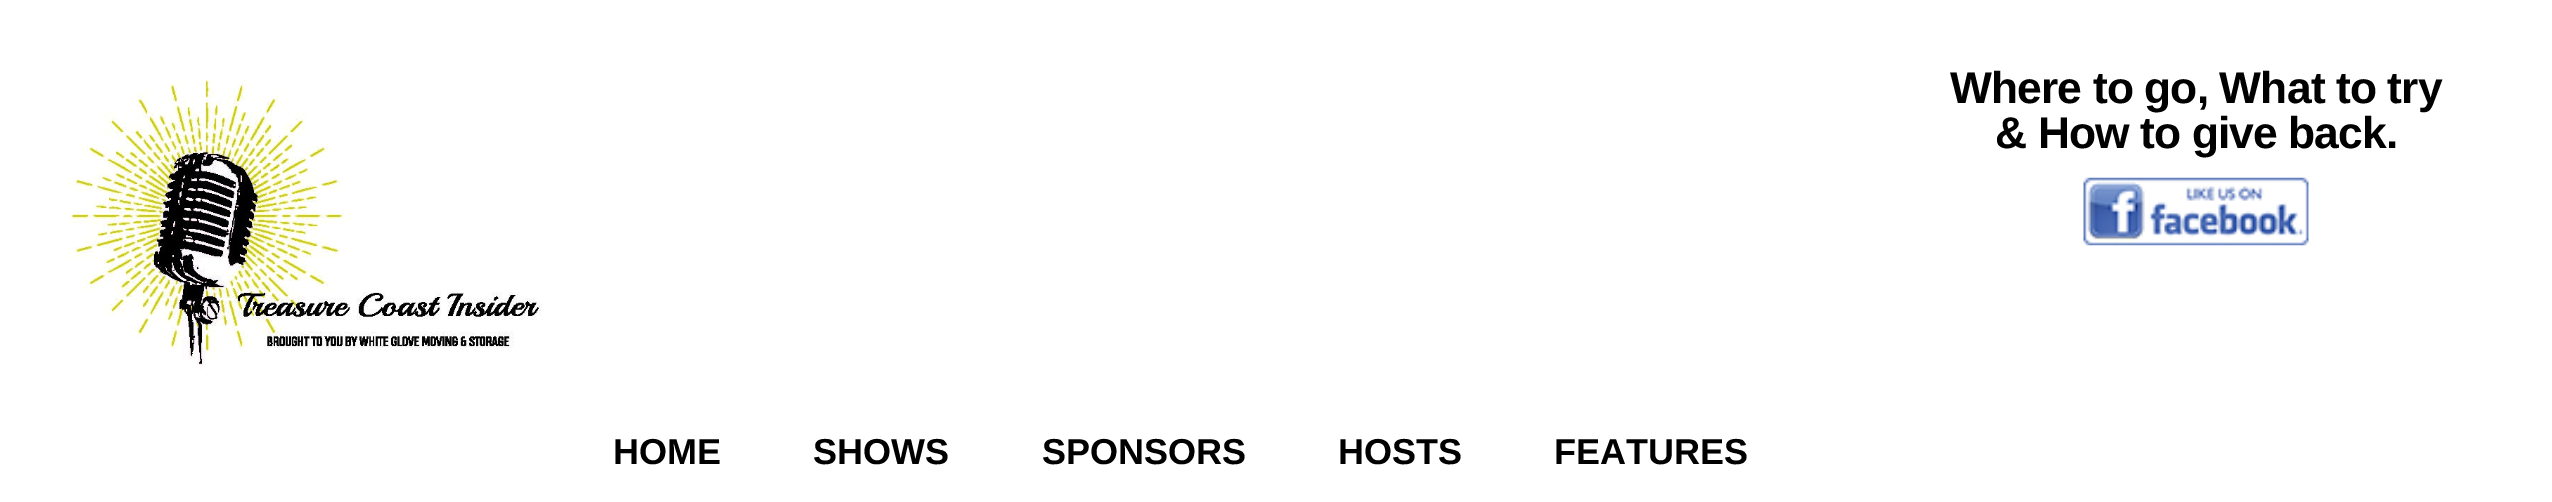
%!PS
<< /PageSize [2552 502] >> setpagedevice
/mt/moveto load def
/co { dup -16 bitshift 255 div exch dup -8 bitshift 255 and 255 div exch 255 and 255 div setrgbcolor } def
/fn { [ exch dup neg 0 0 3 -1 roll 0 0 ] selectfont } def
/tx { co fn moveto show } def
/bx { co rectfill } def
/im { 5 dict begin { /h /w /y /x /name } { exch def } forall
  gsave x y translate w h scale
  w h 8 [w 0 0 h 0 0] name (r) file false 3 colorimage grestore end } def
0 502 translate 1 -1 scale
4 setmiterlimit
0 0 2552 502 16#FFFFFF bx
(media/1.raw) 69 79 473 290 im
(media/2.raw) 2083 177 226 69 im
/LiberationSans-Bold 44.4 fn
16#000000 co
1950 103 mt -.9 0 (Where to go, What to try) ashow
1995 148 mt -.9 0 (& How to give back.) ashow
(HOME) 613 464 /LiberationSans-Bold 36 16#000000 tx
(SHOWS) 813 464 /LiberationSans-Bold 36 16#000000 tx
(SPONSORS) 1042 464 /LiberationSans-Bold 36 16#000000 tx
(HOSTS) 1338 464 /LiberationSans-Bold 36 16#000000 tx
(FEATURES) 1554 464 /LiberationSans-Bold 36 16#000000 tx
showpage
